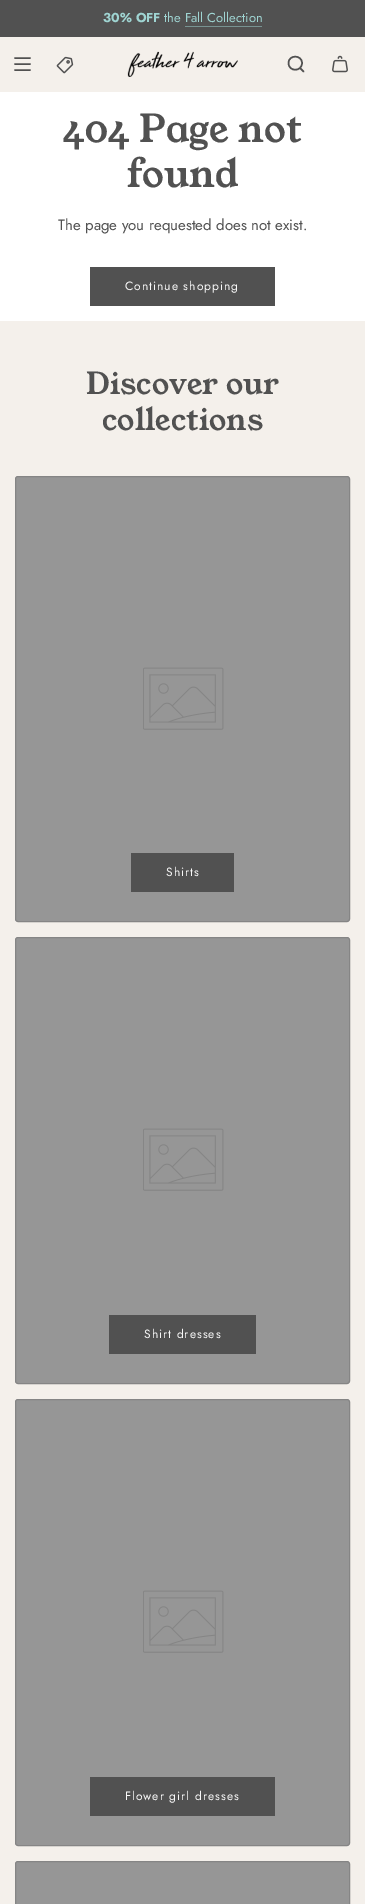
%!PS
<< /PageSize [365 1904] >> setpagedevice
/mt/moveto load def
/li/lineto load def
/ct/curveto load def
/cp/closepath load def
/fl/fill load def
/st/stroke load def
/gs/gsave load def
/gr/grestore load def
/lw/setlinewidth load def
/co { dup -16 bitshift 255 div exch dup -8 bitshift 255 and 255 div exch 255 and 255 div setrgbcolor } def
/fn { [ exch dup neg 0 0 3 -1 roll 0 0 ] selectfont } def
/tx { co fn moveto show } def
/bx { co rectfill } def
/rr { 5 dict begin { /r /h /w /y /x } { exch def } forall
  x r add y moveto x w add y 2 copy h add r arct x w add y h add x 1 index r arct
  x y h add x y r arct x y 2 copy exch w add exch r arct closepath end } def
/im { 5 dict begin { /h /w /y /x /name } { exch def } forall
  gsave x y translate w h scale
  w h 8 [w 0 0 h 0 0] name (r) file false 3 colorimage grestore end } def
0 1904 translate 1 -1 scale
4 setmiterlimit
0 0 365 1904 16#FFFFFF bx
0 0 365 37 16#515151 bx
185 26 77 1 16#789392 bx
0 37 365 55 16#F4F0EB bx
16#515151 co
1.5 lw
1 setlinecap
1 setlinejoin
15 58 mt 30 58 li 15 64 mt 30 64 li 15 70 mt 30 70 li st
(media/1.raw) 56 56 18 18 im
(media/2.raw) 127 51 111 26 im
300 68 mt 303.5 71.5 li 288.5 63 mt 288.5 72 302 72 302 63 ct 302 54.5 288.5 54.5 288.5 63 ct cp st
(media/3.raw) 332 55 16 18 im
90 267 185 39 16#515151 bx
0 321 365 1583 16#F4F0EB bx
16#969696 co
15.5 476.5 334 445 2.5 rr gs fl gr
16#858585 co
1 lw
0 setlinecap
0 setlinejoin
st
(media/4.raw) 143 667 81 63 im
131 853 103 39 16#515151 bx
16#969696 co
15.5 937.5 334 446 2.5 rr gs fl gr
16#858585 co
st
(media/4.raw) 143 1128 81 63 im
109 1315 147 39 16#515151 bx
16#969696 co
15.5 1399.5 334 446 2.5 rr gs fl gr
16#858585 co
st
(media/4.raw) 143 1590 81 63 im
90 1777 185 39 16#515151 bx
16#969696 co
15.5 1861.5 334 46 2.5 rr gs fl gr
16#858585 co
st
(30% OFF) 103 22 /Jost-Bold 13 16#9FD4D2 tx
(the Fall Collection) 164 22 /Jost-Regular 13 16#9FD4D2 tx
(404 Page not) 63 142 /YoungSerif-Regular 38 16#515151 tx
(found) 127 187 /YoungSerif-Regular 38 16#515151 tx
(The page you requested does not exist.) 58 230 /Jost-Regular 15 16#515151 tx
/Jost-Regular 12 fn
16#F8F8F8 co
125 290 mt 1 0 (Continue shopping) ashow
(Discover our) 86 394 /YoungSerif-Regular 30 16#515151 tx
(collections) 102 430 /YoungSerif-Regular 30 16#515151 tx
/Jost-Regular 12 fn
16#F8F8F8 co
166 876 mt 1 0 (Shirts) ashow
144 1338 mt 1 0 (Shirt dresses) ashow
125 1800 mt 1 0 (Flower girl dresses) ashow
showpage
